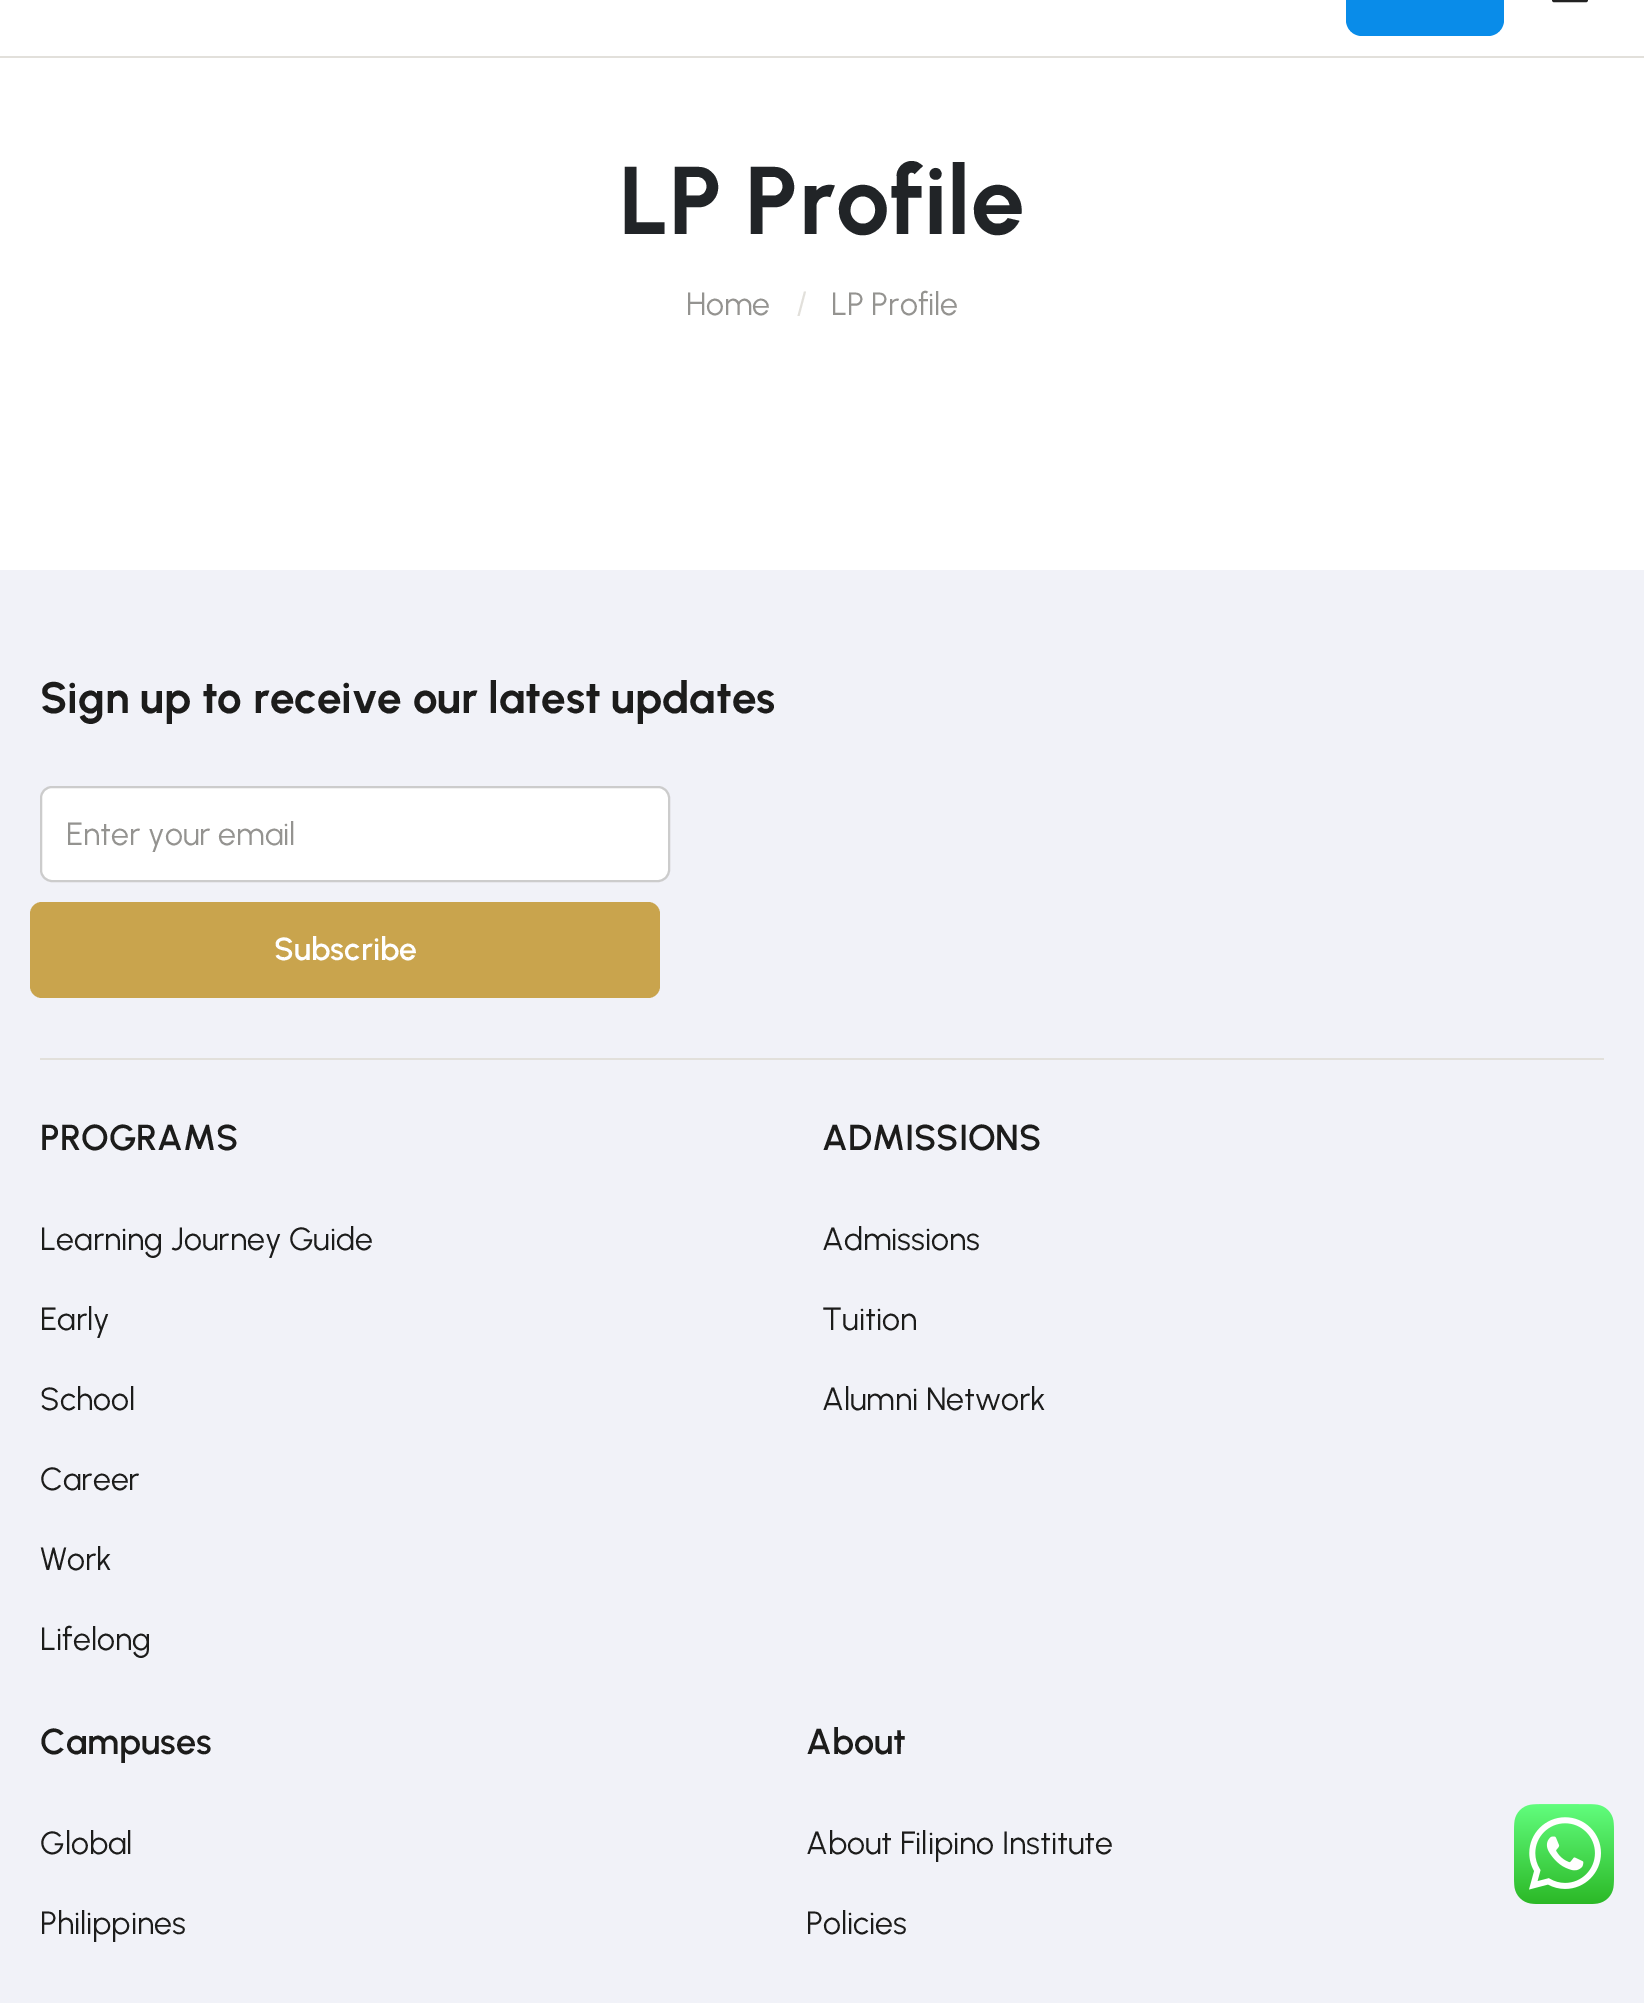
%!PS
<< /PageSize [1644 2003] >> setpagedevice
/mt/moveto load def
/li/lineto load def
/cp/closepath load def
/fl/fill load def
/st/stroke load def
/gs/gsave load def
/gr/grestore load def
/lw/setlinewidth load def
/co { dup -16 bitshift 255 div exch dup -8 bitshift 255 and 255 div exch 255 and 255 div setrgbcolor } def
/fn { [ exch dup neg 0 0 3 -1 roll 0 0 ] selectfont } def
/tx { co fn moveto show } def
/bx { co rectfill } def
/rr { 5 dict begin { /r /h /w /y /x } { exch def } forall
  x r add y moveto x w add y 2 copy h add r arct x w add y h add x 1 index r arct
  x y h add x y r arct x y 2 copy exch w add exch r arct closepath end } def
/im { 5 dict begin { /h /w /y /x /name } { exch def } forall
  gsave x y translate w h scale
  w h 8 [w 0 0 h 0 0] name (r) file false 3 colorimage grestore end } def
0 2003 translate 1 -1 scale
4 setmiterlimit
0 0 1644 2003 16#FFFFFF bx
0 56 1644 2 16#E2E0DB bx
16#098CE9 co
1346 -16 158 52 16 rr fl
16#222222 co
4 lw
1 setlinecap
1 setlinejoin
1554 -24 mt 1586 -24 li 1554 -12 mt 1586 -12 li 1554 0 mt 1586 0 li st
16#E2E0DB co
806 291.5 mt 799.5 316 li 797.5 316 li 804 291.5 li cp fl
0 570 1644 1433 16#F1F2F8 bx
40 1058 1564 2 16#E2E0DB bx
16#FFFFFF co
41 787 628 94 11 rr gs fl gr
16#CCCCCC co
2 lw
0 setlinecap
0 setlinejoin
st
16#C9A44D co
30 902 630 96 12 rr fl
(media/1.raw) 1514 1804 100 100 im
(LP Profile) 619 234 /Urbanist-Bold 96 16#212427 tx
(Home) 686 315 /Urbanist-Regular 32 16#949390 tx
(LP Profile) 831 315 /Urbanist-Regular 32 16#949390 tx
(Sign up to receive our latest updates) 40 713 /Urbanist-Bold 44 16#1C1C1B tx
gs
66 814 578 38 rectclip
(Enter your email) 66 845 /Urbanist-Regular 32 16#949390 tx
gr
(Subscribe) 274 960 /Urbanist-SemiBold 32 16#FFFFFF tx
(PROGRAMS) 40 1150 /Urbanist-SemiBold 36 16#1C1C1B tx
(Learning Journey Guide) 40 1250 /Urbanist-Regular 32 16#1C1C1B tx
(Early) 40 1330 /Urbanist-Regular 32 16#1C1C1B tx
(School) 40 1410 /Urbanist-Regular 32 16#1C1C1B tx
(Career) 40 1490 /Urbanist-Regular 32 16#1C1C1B tx
(Work) 40 1570 /Urbanist-Regular 32 16#1C1C1B tx
(Lifelong) 40 1650 /Urbanist-Regular 32 16#1C1C1B tx
(ADMISSIONS) 822 1150 /Urbanist-SemiBold 36 16#1C1C1B tx
(Admissions) 822 1250 /Urbanist-Regular 32 16#1C1C1B tx
(Tuition) 822 1330 /Urbanist-Regular 32 16#1C1C1B tx
(Alumni Network) 822 1410 /Urbanist-Regular 32 16#1C1C1B tx
(Campuses) 40 1754 /Urbanist-SemiBold 36 16#1C1C1B tx
(Global) 40 1854 /Urbanist-Regular 32 16#1C1C1B tx
(Philippines) 40 1934 /Urbanist-Regular 32 16#1C1C1B tx
(About) 806 1754 /Urbanist-SemiBold 36 16#1C1C1B tx
(About Filipino Institute) 806 1854 /Urbanist-Regular 32 16#1C1C1B tx
(Policies) 806 1934 /Urbanist-Regular 32 16#1C1C1B tx
showpage
